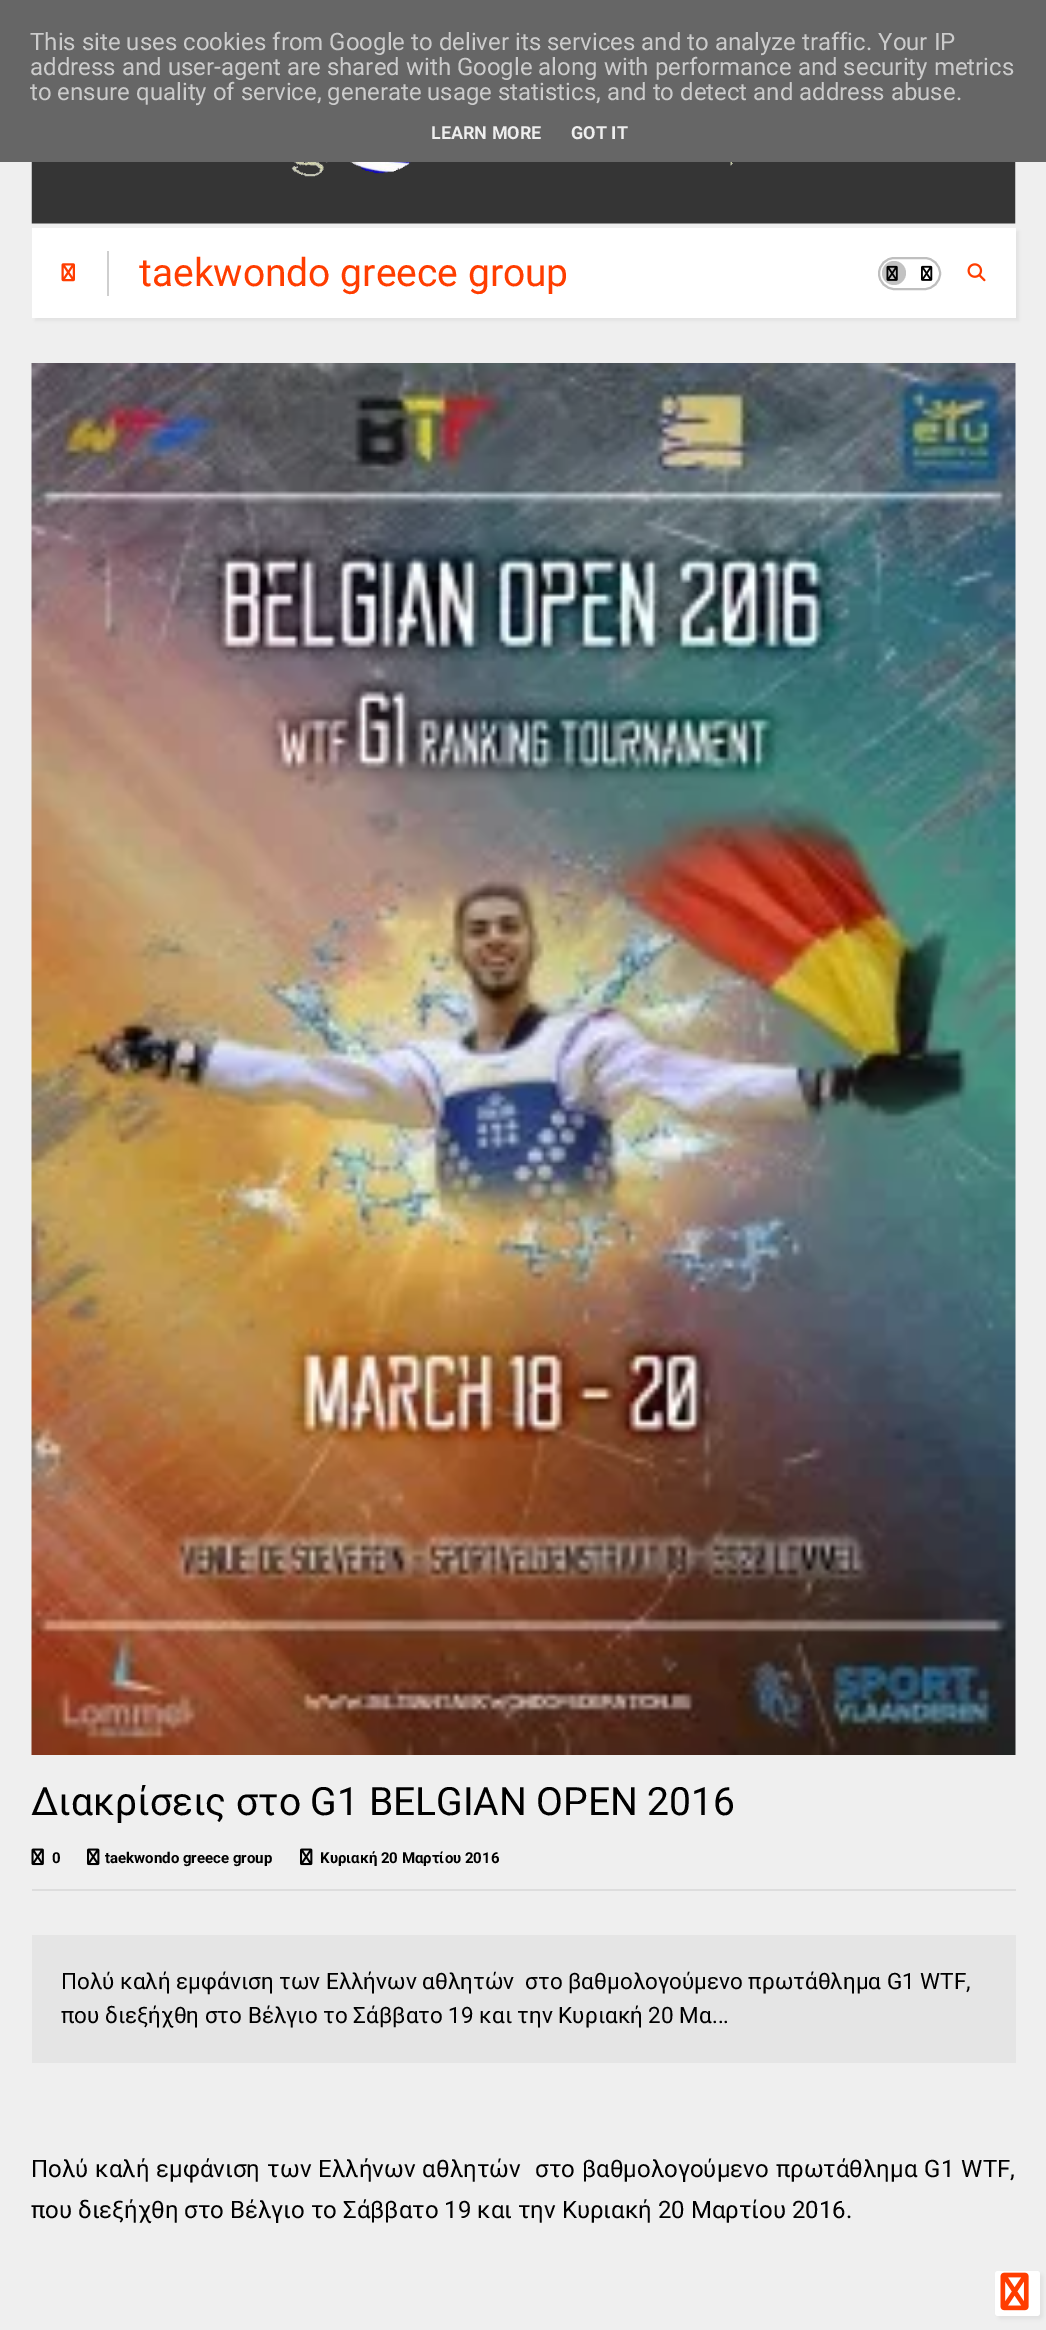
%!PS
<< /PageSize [1046 2330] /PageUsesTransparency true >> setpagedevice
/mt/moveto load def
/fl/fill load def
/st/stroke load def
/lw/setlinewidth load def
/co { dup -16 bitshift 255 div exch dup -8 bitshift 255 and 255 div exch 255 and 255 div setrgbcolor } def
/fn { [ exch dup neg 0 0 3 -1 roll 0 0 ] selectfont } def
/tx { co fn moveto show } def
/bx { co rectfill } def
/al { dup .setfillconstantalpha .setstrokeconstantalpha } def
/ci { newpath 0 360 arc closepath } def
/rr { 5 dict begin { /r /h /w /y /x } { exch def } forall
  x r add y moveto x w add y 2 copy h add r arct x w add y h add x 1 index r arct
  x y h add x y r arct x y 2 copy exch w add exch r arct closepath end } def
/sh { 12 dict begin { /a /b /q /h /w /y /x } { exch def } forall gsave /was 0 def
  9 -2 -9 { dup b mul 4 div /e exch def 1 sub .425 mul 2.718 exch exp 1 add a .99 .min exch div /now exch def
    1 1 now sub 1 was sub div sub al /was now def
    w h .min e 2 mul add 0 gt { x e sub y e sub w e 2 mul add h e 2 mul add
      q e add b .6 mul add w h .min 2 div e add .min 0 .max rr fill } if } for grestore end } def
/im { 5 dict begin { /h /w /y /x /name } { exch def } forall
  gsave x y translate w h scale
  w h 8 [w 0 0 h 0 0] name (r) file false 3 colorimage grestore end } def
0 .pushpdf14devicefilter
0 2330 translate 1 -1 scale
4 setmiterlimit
0 0 1046 2330 16#EFEFEF bx
0 0 1046 162 16#666666 bx
(media/1.raw) 31 162 985 62 im
16#787878 co
35 231 984 90 0 2 .12 sh
32 228 984 90 16#FFFFFF bx
(media/2.raw) 61 263 14 19 im
107 251 2 45 16#CFCFCF bx
16#BFBFBF co
2 lw
879 258 61 31 15.5 rr st
16#C2C2C2 co
894 273 12 ci fl
(media/3.raw) 886 265 12 16 im
(media/4.raw) 921 265 12 16 im
(media/5.raw) 967 263 19 19 im
(media/6.raw) 31 363 985 1392 im
32 1889 984 2 16#DDDDDD bx
(media/7.raw) 31 1848 13 18 im
(media/8.raw) 87 1848 13 18 im
(media/8.raw) 300 1848 13 18 im
32 1935 984 128 16#E5E5E5 bx
16#000000 co
998 2274 45 45 3 2 .05 sh
16#FFFFFF co
995 2271 45 45 3 rr fl
(media/9.raw) 1000 2272 29 39 im
(This site uses cookies from Google to deliver its services and to analyze traffic. Your IP) 30 50 /Roboto-Regular 24 16#CCCCCC tx
(address and user-agent are shared with Google along with performance and security metrics) 30 75 /Roboto-Regular 24 16#CCCCCC tx
(to ensure quality of service, generate usage statistics, and to detect and address abuse.) 30 100 /Roboto-Regular 24 16#CCCCCC tx
(LEARN MORE) 431 139 /Roboto-Bold 18 16#EEEEEE tx
(GOT IT) 571 139 /Roboto-Bold 18 16#EEEEEE tx
(taekwondo greece group) 139 286 /Roboto-Regular 39 16#FF3D00 tx
(Διακρίσεις στο G1 BELGIAN OPEN 2016) 31 1815 /Roboto-Regular 39 16#000000 tx
(0) 52 1863 /Roboto-Bold 15 16#000000 tx
(taekwondo greece group) 105 1863 /Roboto-Bold 15 16#000000 tx
(Κυριακή 20 Μαρτίου 2016) 320 1863 /Roboto-Bold 15 16#000000 tx
(Πολύ καλή εμφάνιση των Ελλήνων αθλητών  στο βαθμολογούμενο πρωτάθλημα G1 WTF,) 61 1989 /Roboto-Regular 22.5 16#000000 tx
(που διεξήχθη στο Βέλγιο το Σάββατο 19 και την Κυριακή 20 Μα...) 61 2023 /Roboto-Regular 22.5 16#000000 tx
/Roboto-Regular 24 fn
31 2177 mt 1.25 0 32 (Πολύ καλή εμφάνιση των Ελλήνων αθλητών  στο βαθμολογούμενο πρωτάθλημα G1 WTF,) widthshow
(που διεξήχθη στο Βέλγιο το Σάββατο 19 και την Κυριακή 20 Μαρτίου 2016.) 31 2218 /Roboto-Regular 24 16#000000 tx
.poppdf14devicefilter showpage
